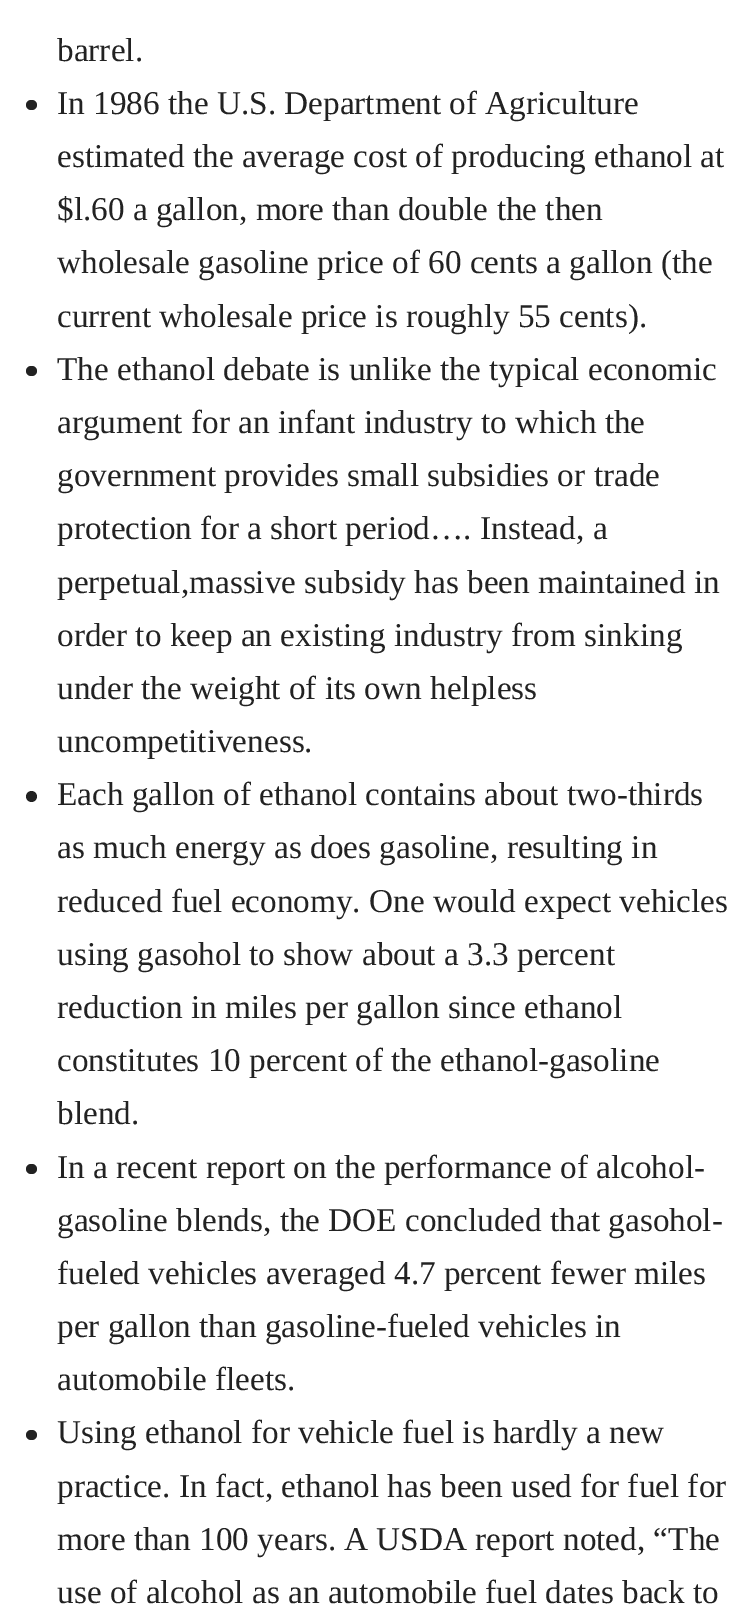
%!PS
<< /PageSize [756 1614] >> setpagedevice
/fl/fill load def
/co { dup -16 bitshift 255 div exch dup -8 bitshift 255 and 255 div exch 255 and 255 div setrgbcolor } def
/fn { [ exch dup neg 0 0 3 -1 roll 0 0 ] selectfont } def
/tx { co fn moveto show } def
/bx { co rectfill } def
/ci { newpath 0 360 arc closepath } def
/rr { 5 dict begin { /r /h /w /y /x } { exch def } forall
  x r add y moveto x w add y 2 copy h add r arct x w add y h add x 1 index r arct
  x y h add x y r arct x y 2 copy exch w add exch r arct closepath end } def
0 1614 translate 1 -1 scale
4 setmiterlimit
0 0 756 1614 16#FFFFFF bx
16#222222 co
26 100 11 10 5 rr fl
26 366 11 10 5 rr fl
31.5 796.5 5.5 ci fl
26 1164 11 10 5 rr fl
26 1430 11 10 5 rr fl
(barrel.) 57 61 /LiberationSerif-Regular 33.25 16#222222 tx
(In 1986 the U.S. Department of Agriculture) 57 114 /LiberationSerif-Regular 33.25 16#222222 tx
(estimated the average cost of producing ethanol at) 57 167 /LiberationSerif-Regular 33.25 16#222222 tx
($l.60 a gallon, more than double the then) 57 220 /LiberationSerif-Regular 33.25 16#222222 tx
(wholesale gasoline price of 60 cents a gallon \(the) 57 273 /LiberationSerif-Regular 33.25 16#222222 tx
(current wholesale price is roughly 55 cents\).) 57 327 /LiberationSerif-Regular 33.25 16#222222 tx
(The ethanol debate is unlike the typical economic) 57 380 /LiberationSerif-Regular 33.25 16#222222 tx
(argument for an infant industry to which the) 57 433 /LiberationSerif-Regular 33.25 16#222222 tx
(government provides small subsidies or trade) 57 486 /LiberationSerif-Regular 33.25 16#222222 tx
(protection for a short period…. Instead, a) 57 539 /LiberationSerif-Regular 33.25 16#222222 tx
(perpetual,massive subsidy has been maintained in) 57 593 /LiberationSerif-Regular 33.25 16#222222 tx
(order to keep an existing industry from sinking) 57 646 /LiberationSerif-Regular 33.25 16#222222 tx
(under the weight of its own helpless) 57 699 /LiberationSerif-Regular 33.25 16#222222 tx
(uncompetitiveness.) 57 752 /LiberationSerif-Regular 33.25 16#222222 tx
(Each gallon of ethanol contains about two-thirds) 57 805 /LiberationSerif-Regular 33.25 16#222222 tx
(as much energy as does gasoline, resulting in) 57 858 /LiberationSerif-Regular 33.25 16#222222 tx
(reduced fuel economy. One would expect vehicles) 57 912 /LiberationSerif-Regular 33.25 16#222222 tx
(using gasohol to show about a 3.3 percent) 57 965 /LiberationSerif-Regular 33.25 16#222222 tx
(reduction in miles per gallon since ethanol) 57 1018 /LiberationSerif-Regular 33.25 16#222222 tx
(constitutes 10 percent of the ethanol-gasoline) 57 1071 /LiberationSerif-Regular 33.25 16#222222 tx
(blend.) 57 1124 /LiberationSerif-Regular 33.25 16#222222 tx
(In a recent report on the performance of alcohol-) 57 1178 /LiberationSerif-Regular 33.25 16#222222 tx
(gasoline blends, the DOE concluded that gasohol-) 57 1231 /LiberationSerif-Regular 33.25 16#222222 tx
(fueled vehicles averaged 4.7 percent fewer miles) 57 1284 /LiberationSerif-Regular 33.25 16#222222 tx
(per gallon than gasoline-fueled vehicles in) 57 1337 /LiberationSerif-Regular 33.25 16#222222 tx
(automobile fleets.) 57 1390 /LiberationSerif-Regular 33.25 16#222222 tx
(Using ethanol for vehicle fuel is hardly a new) 57 1443 /LiberationSerif-Regular 33.25 16#222222 tx
(practice. In fact, ethanol has been used for fuel for) 57 1497 /LiberationSerif-Regular 33.25 16#222222 tx
(more than 100 years. A USDA report noted, “The) 57 1550 /LiberationSerif-Regular 33.25 16#222222 tx
(use of alcohol as an automobile fuel dates back to) 57 1603 /LiberationSerif-Regular 33.25 16#222222 tx
showpage
